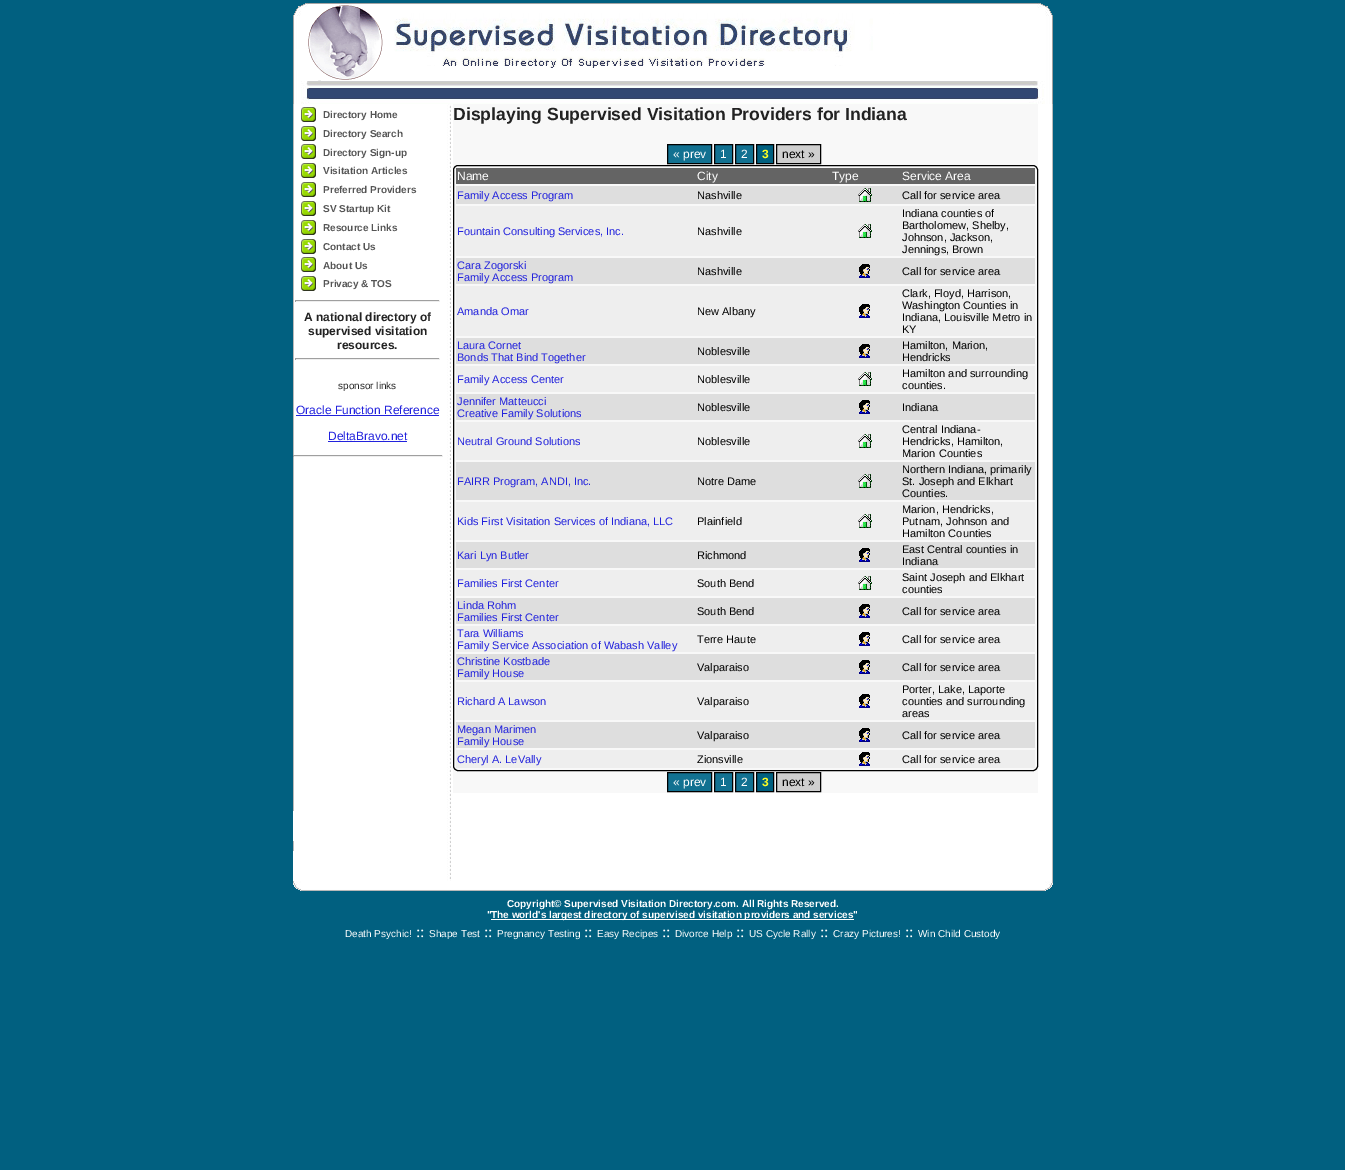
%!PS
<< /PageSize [1345 1170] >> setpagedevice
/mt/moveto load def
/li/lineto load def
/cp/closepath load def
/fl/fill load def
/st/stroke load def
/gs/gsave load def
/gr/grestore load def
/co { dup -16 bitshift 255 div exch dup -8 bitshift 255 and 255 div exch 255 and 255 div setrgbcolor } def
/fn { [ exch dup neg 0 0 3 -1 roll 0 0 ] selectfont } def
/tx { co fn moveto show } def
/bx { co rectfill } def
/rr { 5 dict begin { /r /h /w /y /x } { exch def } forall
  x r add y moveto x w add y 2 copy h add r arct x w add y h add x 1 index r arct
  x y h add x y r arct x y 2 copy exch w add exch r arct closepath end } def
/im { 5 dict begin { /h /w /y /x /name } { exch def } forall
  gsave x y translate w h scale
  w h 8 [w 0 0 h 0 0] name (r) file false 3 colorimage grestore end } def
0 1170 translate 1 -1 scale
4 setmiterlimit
0 0 1345 1170 16#016080 bx
(media/1.raw) 293 3 760 101 im
294 104 153 707 16#FFFFFF bx
293 104 1 707 16#B9B9B9 bx
(media/2.raw) 301 107 15 15 im
(media/2.raw) 301 126 15 15 im
(media/2.raw) 301 144 15 15 im
(media/2.raw) 301 163 15 15 im
(media/2.raw) 301 182 15 15 im
(media/2.raw) 301 201 15 15 im
(media/2.raw) 301 220 15 15 im
(media/2.raw) 301 239 15 15 im
(media/2.raw) 301 257 15 15 im
(media/2.raw) 301 276 15 15 im
295 300 145 1 16#9F9F9F bx
439 300 1 2 16#EEEEEE bx
295 301 145 1 16#EEEEEE bx
295 300 1 2 16#9F9F9F bx
295 358 145 1 16#9F9F9F bx
439 358 1 2 16#EEEEEE bx
295 359 145 1 16#EEEEEE bx
295 358 1 2 16#9F9F9F bx
296 415 143 1 16#2222DD bx
328 441 79 1 16#2222DD bx
293 455 150 1 16#9F9F9F bx
442 455 1 2 16#EEEEEE bx
293 456 150 1 16#EEEEEE bx
293 455 1 2 16#9F9F9F bx
(media/3.raw) 447 104 606 707 im
453 104 585 689 16#F8F8F8 bx
16#127191 co
667.5 144.5 mt 711.5 144.5 li 711.5 163.5 li 667.5 163.5 li cp gs fl gr
16#000000 co
st
16#127191 co
714.5 144.5 mt 732.5 144.5 li 732.5 163.5 li 714.5 163.5 li cp gs fl gr
16#000000 co
st
16#127191 co
735.5 144.5 mt 753.5 144.5 li 753.5 163.5 li 735.5 163.5 li cp gs fl gr
16#000000 co
st
16#016080 co
756.5 144.5 mt 773.5 144.5 li 773.5 163.5 li 756.5 163.5 li cp gs fl gr
16#000000 co
st
16#CFCFCF co
776.5 144.5 mt 820.5 144.5 li 820.5 163.5 li 776.5 163.5 li cp gs fl gr
16#000000 co
st
453.5 165.5 584 605 4.5 rr st
456 168 579 16 16#646464 bx
456 186 579 18 16#DEDEDE bx
(media/4.raw) 858 188 14 14 im
456 206 579 50 16#EEEEEE bx
(media/5.raw) 858 224 14 14 im
456 258 579 26 16#DEDEDE bx
(media/6.raw) 859 264 11 14 im
456 286 579 50 16#EEEEEE bx
(media/7.raw) 859 304 11 14 im
456 338 579 26 16#DEDEDE bx
(media/6.raw) 859 344 11 14 im
456 366 579 26 16#EEEEEE bx
(media/5.raw) 858 372 14 14 im
456 394 579 26 16#DEDEDE bx
(media/6.raw) 859 400 11 14 im
456 422 579 38 16#EEEEEE bx
(media/5.raw) 858 434 14 14 im
456 462 579 38 16#DEDEDE bx
(media/4.raw) 858 474 14 14 im
456 502 579 38 16#EEEEEE bx
(media/5.raw) 858 514 14 14 im
456 542 579 26 16#DEDEDE bx
(media/6.raw) 859 548 11 14 im
456 570 579 26 16#EEEEEE bx
(media/5.raw) 858 576 14 14 im
456 598 579 26 16#DEDEDE bx
(media/6.raw) 859 604 11 14 im
456 626 579 26 16#EEEEEE bx
(media/7.raw) 859 632 11 14 im
456 654 579 26 16#DEDEDE bx
(media/6.raw) 859 660 11 14 im
456 682 579 38 16#EEEEEE bx
(media/7.raw) 859 694 11 14 im
456 722 579 26 16#DEDEDE bx
(media/6.raw) 859 728 11 14 im
456 750 579 18 16#EEEEEE bx
(media/7.raw) 859 752 11 14 im
16#127191 co
667.5 772.5 mt 711.5 772.5 li 711.5 791.5 li 667.5 791.5 li cp gs fl gr
16#000000 co
st
16#127191 co
714.5 772.5 mt 732.5 772.5 li 732.5 791.5 li 714.5 791.5 li cp gs fl gr
16#000000 co
st
16#127191 co
735.5 772.5 mt 753.5 772.5 li 753.5 791.5 li 735.5 791.5 li cp gs fl gr
16#000000 co
st
16#016080 co
756.5 772.5 mt 773.5 772.5 li 773.5 791.5 li 756.5 791.5 li cp gs fl gr
16#000000 co
st
16#CFCFCF co
776.5 772.5 mt 820.5 772.5 li 820.5 791.5 li 776.5 791.5 li cp gs fl gr
16#000000 co
st
293 811 154 70 16#FFFFFF bx
293 841 1 10 16#B9B9B9 bx
(media/8.raw) 447 811 606 70 im
(media/9.raw) 293 881 760 10 im
491 919 363 1 16#FFFFFF bx
(Directory Home) 323 118 /LiberationSans-Bold 10 16#555555 tx
(Directory Search) 323 137 /LiberationSans-Bold 10 16#555555 tx
(Directory Sign-up) 323 156 /LiberationSans-Bold 10 16#555555 tx
(Visitation Articles) 323 174 /LiberationSans-Bold 10 16#555555 tx
(Preferred Providers) 323 193 /LiberationSans-Bold 10 16#555555 tx
(SV Startup Kit) 323 212 /LiberationSans-Bold 10 16#555555 tx
(Resource Links) 323 231 /LiberationSans-Bold 10 16#555555 tx
(Contact Us) 323 250 /LiberationSans-Bold 10 16#555555 tx
(About Us) 323 269 /LiberationSans-Bold 10 16#555555 tx
(Privacy & TOS) 323 287 /LiberationSans-Bold 10 16#555555 tx
(A national directory of) 304 321 /LiberationSans-Bold 12 16#222222 tx
(supervised visitation) 308 335 /LiberationSans-Bold 12 16#222222 tx
(resources.) 337 349 /LiberationSans-Bold 12 16#222222 tx
(sponsor links) 338 389 /LiberationSans-Regular 10 16#222222 tx
(Oracle Function Reference) 296 414 /LiberationSans-Regular 12 16#2222DD tx
(DeltaBravo.net) 328 440 /LiberationSans-Regular 12 16#2222DD tx
(Displaying Supervised Visitation Providers for Indiana) 453 120 /LiberationSans-Bold 17.6 16#222222 tx
(« prev) 673 158 /LiberationSans-Regular 12 16#FFFFFF tx
(1) 720 158 /LiberationSans-Regular 12 16#FFFFFF tx
(2) 741 158 /LiberationSans-Regular 12 16#FFFFFF tx
(3) 762 158 /LiberationSans-Bold 12 16#FFFF22 tx
(next ») 782 158 /LiberationSans-Regular 12 16#000000 tx
(Name) 457 180 /LiberationSans-Regular 12 16#FFFFFF tx
(City) 697 180 /LiberationSans-Regular 12 16#FFFFFF tx
(Type) 832 180 /LiberationSans-Regular 12 16#FFFFFF tx
(Service Area) 902 180 /LiberationSans-Regular 12 16#FFFFFF tx
(Family Access Program) 457 199 /LiberationSans-Regular 11 16#2222DD tx
(Nashville) 697 199 /LiberationSans-Regular 11 16#000000 tx
(Call for service area) 902 199 /LiberationSans-Regular 11 16#000000 tx
(Fountain Consulting Services, Inc.) 457 235 /LiberationSans-Regular 11 16#2222DD tx
(Nashville) 697 235 /LiberationSans-Regular 11 16#000000 tx
(Indiana counties of) 902 217 /LiberationSans-Regular 11 16#000000 tx
(Bartholomew, Shelby,) 902 229 /LiberationSans-Regular 11 16#000000 tx
(Johnson, Jackson,) 902 241 /LiberationSans-Regular 11 16#000000 tx
(Jennings, Brown) 902 253 /LiberationSans-Regular 11 16#000000 tx
(Cara Zogorski) 457 269 /LiberationSans-Regular 11 16#2222DD tx
(Family Access Program) 457 281 /LiberationSans-Regular 11 16#2222DD tx
(Nashville) 697 275 /LiberationSans-Regular 11 16#000000 tx
(Call for service area) 902 275 /LiberationSans-Regular 11 16#000000 tx
(Amanda Omar) 457 315 /LiberationSans-Regular 11 16#2222DD tx
(New Albany) 697 315 /LiberationSans-Regular 11 16#000000 tx
(Clark, Floyd, Harrison,) 902 297 /LiberationSans-Regular 11 16#000000 tx
(Washington Counties in) 902 309 /LiberationSans-Regular 11 16#000000 tx
(Indiana, Louisville Metro in) 902 321 /LiberationSans-Regular 11 16#000000 tx
(KY) 902 333 /LiberationSans-Regular 11 16#000000 tx
(Laura Cornet) 457 349 /LiberationSans-Regular 11 16#2222DD tx
(Bonds That Bind Together) 457 361 /LiberationSans-Regular 11 16#2222DD tx
(Noblesville) 697 355 /LiberationSans-Regular 11 16#000000 tx
(Hamilton, Marion,) 902 349 /LiberationSans-Regular 11 16#000000 tx
(Hendricks) 902 361 /LiberationSans-Regular 11 16#000000 tx
(Family Access Center) 457 383 /LiberationSans-Regular 11 16#2222DD tx
(Noblesville) 697 383 /LiberationSans-Regular 11 16#000000 tx
(Hamilton and surrounding) 902 377 /LiberationSans-Regular 11 16#000000 tx
(counties.) 902 389 /LiberationSans-Regular 11 16#000000 tx
(Jennifer Matteucci) 457 405 /LiberationSans-Regular 11 16#2222DD tx
(Creative Family Solutions) 457 417 /LiberationSans-Regular 11 16#2222DD tx
(Noblesville) 697 411 /LiberationSans-Regular 11 16#000000 tx
(Indiana) 902 411 /LiberationSans-Regular 11 16#000000 tx
(Neutral Ground Solutions) 457 445 /LiberationSans-Regular 11 16#2222DD tx
(Noblesville) 697 445 /LiberationSans-Regular 11 16#000000 tx
(Central Indiana-) 902 433 /LiberationSans-Regular 11 16#000000 tx
(Hendricks, Hamilton,) 902 445 /LiberationSans-Regular 11 16#000000 tx
(Marion Counties) 902 457 /LiberationSans-Regular 11 16#000000 tx
(FAIRR Program, ANDI, Inc.) 457 485 /LiberationSans-Regular 11 16#2222DD tx
(Notre Dame) 697 485 /LiberationSans-Regular 11 16#000000 tx
(Northern Indiana, primarily) 902 473 /LiberationSans-Regular 11 16#000000 tx
(St. Joseph and Elkhart) 902 485 /LiberationSans-Regular 11 16#000000 tx
(Counties.) 902 497 /LiberationSans-Regular 11 16#000000 tx
(Kids First Visitation Services of Indiana, LLC) 457 525 /LiberationSans-Regular 11 16#2222DD tx
(Plainfield) 697 525 /LiberationSans-Regular 11 16#000000 tx
(Marion, Hendricks,) 902 513 /LiberationSans-Regular 11 16#000000 tx
(Putnam, Johnson and) 902 525 /LiberationSans-Regular 11 16#000000 tx
(Hamilton Counties) 902 537 /LiberationSans-Regular 11 16#000000 tx
(Kari Lyn Butler) 457 559 /LiberationSans-Regular 11 16#2222DD tx
(Richmond) 697 559 /LiberationSans-Regular 11 16#000000 tx
(East Central counties in) 902 553 /LiberationSans-Regular 11 16#000000 tx
(Indiana) 902 565 /LiberationSans-Regular 11 16#000000 tx
(Families First Center) 457 587 /LiberationSans-Regular 11 16#2222DD tx
(South Bend) 697 587 /LiberationSans-Regular 11 16#000000 tx
(Saint Joseph and Elkhart) 902 581 /LiberationSans-Regular 11 16#000000 tx
(counties) 902 593 /LiberationSans-Regular 11 16#000000 tx
(Linda Rohm) 457 609 /LiberationSans-Regular 11 16#2222DD tx
(Families First Center) 457 621 /LiberationSans-Regular 11 16#2222DD tx
(South Bend) 697 615 /LiberationSans-Regular 11 16#000000 tx
(Call for service area) 902 615 /LiberationSans-Regular 11 16#000000 tx
(Tara Williams) 457 637 /LiberationSans-Regular 11 16#2222DD tx
(Family Service Association of Wabash Valley) 457 649 /LiberationSans-Regular 11 16#2222DD tx
(Terre Haute) 697 643 /LiberationSans-Regular 11 16#000000 tx
(Call for service area) 902 643 /LiberationSans-Regular 11 16#000000 tx
(Christine Kostbade) 457 665 /LiberationSans-Regular 11 16#2222DD tx
(Family House) 457 677 /LiberationSans-Regular 11 16#2222DD tx
(Valparaiso) 697 671 /LiberationSans-Regular 11 16#000000 tx
(Call for service area) 902 671 /LiberationSans-Regular 11 16#000000 tx
(Richard A Lawson) 457 705 /LiberationSans-Regular 11 16#2222DD tx
(Valparaiso) 697 705 /LiberationSans-Regular 11 16#000000 tx
(Porter, Lake, Laporte) 902 693 /LiberationSans-Regular 11 16#000000 tx
(counties and surrounding) 902 705 /LiberationSans-Regular 11 16#000000 tx
(areas) 902 717 /LiberationSans-Regular 11 16#000000 tx
(Megan Marimen) 457 733 /LiberationSans-Regular 11 16#2222DD tx
(Family House) 457 745 /LiberationSans-Regular 11 16#2222DD tx
(Valparaiso) 697 739 /LiberationSans-Regular 11 16#000000 tx
(Call for service area) 902 739 /LiberationSans-Regular 11 16#000000 tx
(Cheryl A. LeVally) 457 763 /LiberationSans-Regular 11 16#2222DD tx
(Zionsville) 697 763 /LiberationSans-Regular 11 16#000000 tx
(Call for service area) 902 763 /LiberationSans-Regular 11 16#000000 tx
(« prev) 673 786 /LiberationSans-Regular 12 16#FFFFFF tx
(1) 720 786 /LiberationSans-Regular 12 16#FFFFFF tx
(2) 741 786 /LiberationSans-Regular 12 16#FFFFFF tx
(3) 762 786 /LiberationSans-Bold 12 16#FFFF22 tx
(next ») 782 786 /LiberationSans-Regular 12 16#000000 tx
(Copyright© Supervised Visitation Directory.com. All Rights Reserved.) 507 907 /LiberationSans-Bold 10 16#FFFFFF tx
(") 487 918 /LiberationSans-Bold 10 16#FFFFFF tx
(The world's largest directory of supervised visitation providers and services") 491 918 /LiberationSans-Bold 10 16#FFFFFF tx
(Death Psychic!) 345 937 /LiberationSans-Regular 10 16#FFFFFF tx
(::) 416 937 /LiberationSerif-Regular 16 16#FFFFFF tx
(Shape Test) 429 937 /LiberationSans-Regular 10 16#FFFFFF tx
(::) 484 937 /LiberationSerif-Regular 16 16#FFFFFF tx
(Pregnancy Testing) 497 937 /LiberationSans-Regular 10 16#FFFFFF tx
(::) 584 937 /LiberationSerif-Regular 16 16#FFFFFF tx
(Easy Recipes) 597 937 /LiberationSans-Regular 10 16#FFFFFF tx
(::) 662 937 /LiberationSerif-Regular 16 16#FFFFFF tx
(Divorce Help) 675 937 /LiberationSans-Regular 10 16#FFFFFF tx
(::) 736 937 /LiberationSerif-Regular 16 16#FFFFFF tx
(US Cycle Rally) 749 937 /LiberationSans-Regular 10 16#FFFFFF tx
(::) 820 937 /LiberationSerif-Regular 16 16#FFFFFF tx
(Crazy Pictures!) 833 937 /LiberationSans-Regular 10 16#FFFFFF tx
(::) 905 937 /LiberationSerif-Regular 16 16#FFFFFF tx
(Win Child Custody) 918 937 /LiberationSans-Regular 10 16#FFFFFF tx
showpage
